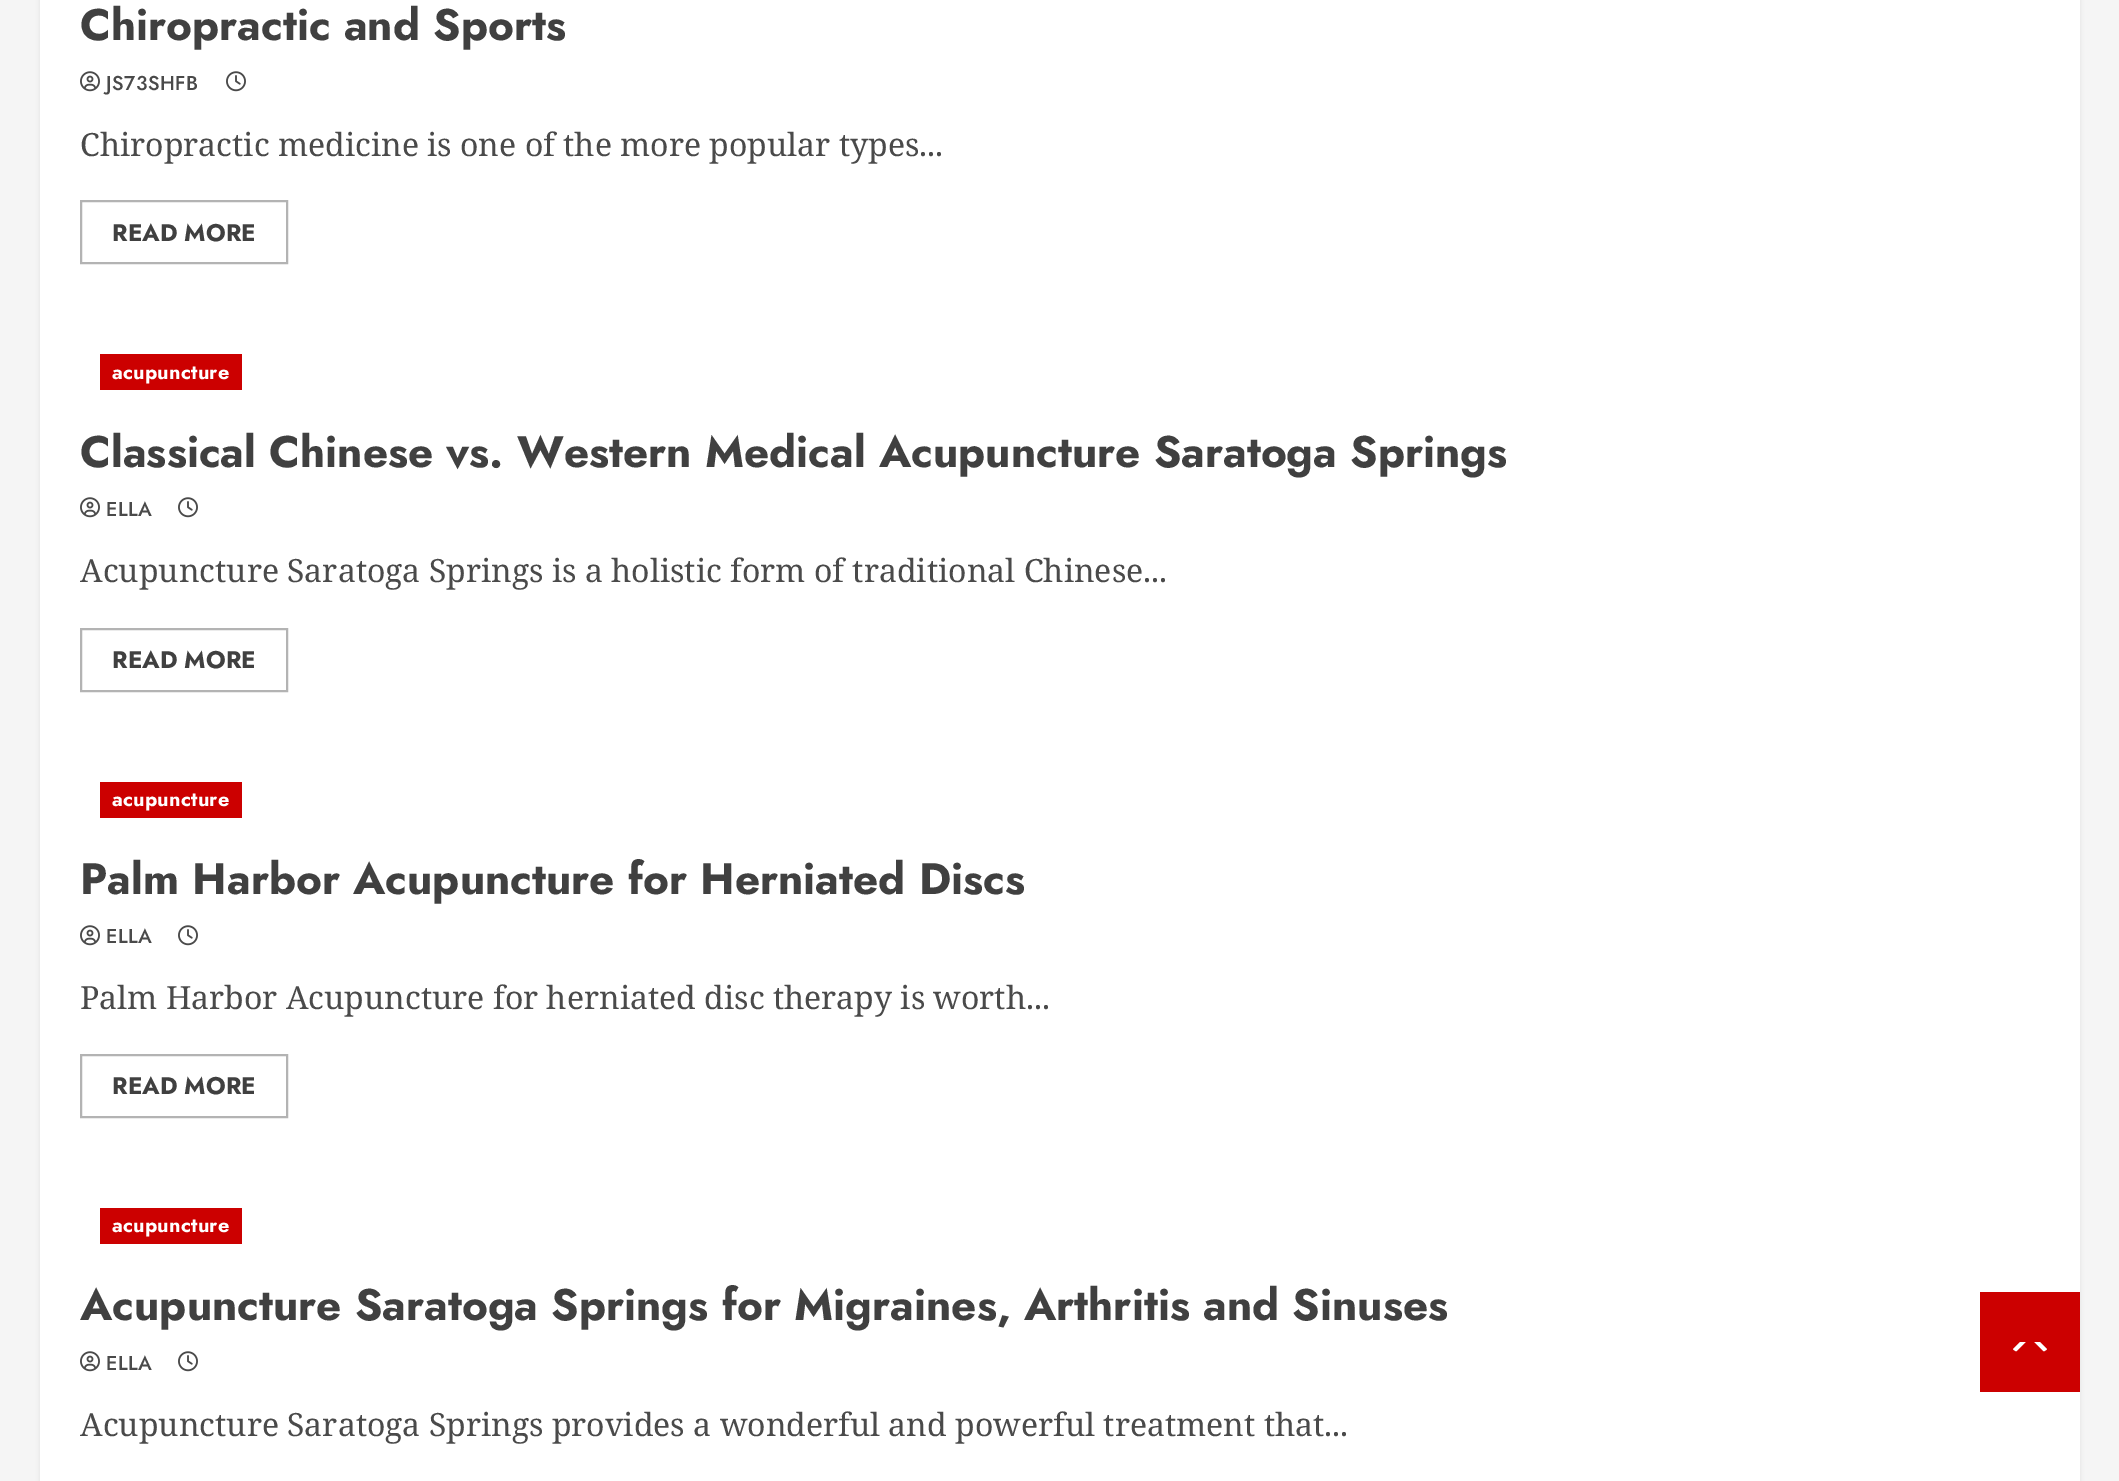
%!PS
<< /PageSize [2119 1481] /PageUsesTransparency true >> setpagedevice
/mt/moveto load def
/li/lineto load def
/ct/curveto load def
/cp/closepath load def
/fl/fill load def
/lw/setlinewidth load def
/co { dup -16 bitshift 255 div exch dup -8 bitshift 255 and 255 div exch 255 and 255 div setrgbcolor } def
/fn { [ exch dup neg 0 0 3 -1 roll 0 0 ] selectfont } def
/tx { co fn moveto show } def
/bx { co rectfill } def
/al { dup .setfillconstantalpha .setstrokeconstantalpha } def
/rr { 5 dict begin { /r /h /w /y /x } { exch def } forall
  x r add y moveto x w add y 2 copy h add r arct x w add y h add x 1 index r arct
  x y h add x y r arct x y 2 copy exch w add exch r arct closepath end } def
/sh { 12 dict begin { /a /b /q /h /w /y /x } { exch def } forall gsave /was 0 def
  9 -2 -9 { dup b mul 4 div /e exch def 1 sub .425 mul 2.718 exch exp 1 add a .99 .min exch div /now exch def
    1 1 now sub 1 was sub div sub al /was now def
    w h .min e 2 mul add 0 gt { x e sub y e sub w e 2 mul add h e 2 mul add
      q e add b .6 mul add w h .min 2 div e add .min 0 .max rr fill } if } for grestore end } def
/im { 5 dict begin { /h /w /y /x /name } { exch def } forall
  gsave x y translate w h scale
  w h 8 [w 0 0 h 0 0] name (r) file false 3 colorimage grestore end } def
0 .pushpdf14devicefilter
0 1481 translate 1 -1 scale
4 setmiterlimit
0 0 2119 1481 16#F5F5F5 bx
16#000000 co
40 -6 2040 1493 0 2 .08 sh
40 0 2040 1481 16#FFFFFF bx
(media/1.raw) 80 71 20 21 im
(media/2.raw) 226 71 20 21 im
16#B3B3B3 co
2 lw
81 201 206 62 rectstroke
100 354 142 36 16#CC0000 bx
(media/1.raw) 80 497 20 21 im
(media/2.raw) 178 497 20 21 im
16#B3B3B3 co
81 629 206 62 rectstroke
100 782 142 36 16#CC0000 bx
(media/1.raw) 80 925 20 21 im
(media/2.raw) 178 925 20 21 im
16#B3B3B3 co
81 1055 206 62 rectstroke
100 1208 142 36 16#CC0000 bx
(media/1.raw) 80 1351 20 21 im
(media/2.raw) 178 1351 20 21 im
1980 1292 100 100 16#CC0000 bx
16#FFFFFF co
2020 1352 mt 2040 1352 li 2043 1352 2045.5 1351 2047 1349 ct 2040 1342 li 2020 1342 li 2013 1349 li 2014.5 1351 2017 1352 2020 1352 ct cp fl
16#CC0000 co
2050 1358 mt 2010 1358 li 2030 1338 li cp fl
(Chiropractic and Sports) 80 40 /Jost-Bold 44 16#404040 tx
/Jost-Medium 20 fn
16#4A4A4A co
106 90 mt .5 0 (JS73SHFB) ashow
(Chiropractic medicine is one of the more popular types...) 80 156 /NotoSerif-Regular 32 16#4A4A4A tx
(READ MORE) 112 241 /Jost-Bold 24 16#404040 tx
/Jost-Bold 20 fn
16#FFFFFF co
112 379 mt .25 0 (acupuncture) ashow
(Classical Chinese vs. Western Medical Acupuncture Saratoga Springs) 80 467 /Jost-Bold 44 16#404040 tx
/Jost-Medium 20 fn
16#4A4A4A co
106 516 mt .5 0 (ELLA) ashow
(Acupuncture Saratoga Springs is a holistic form of traditional Chinese...) 80 582 /NotoSerif-Regular 32 16#4A4A4A tx
(READ MORE) 112 668 /Jost-Bold 24 16#404040 tx
/Jost-Bold 20 fn
16#FFFFFF co
112 806 mt .25 0 (acupuncture) ashow
(Palm Harbor Acupuncture for Herniated Discs) 80 894 /Jost-Bold 44 16#404040 tx
/Jost-Medium 20 fn
16#4A4A4A co
106 943 mt .5 0 (ELLA) ashow
(Palm Harbor Acupuncture for herniated disc therapy is worth...) 80 1009 /NotoSerif-Regular 32 16#4A4A4A tx
(READ MORE) 112 1094 /Jost-Bold 24 16#404040 tx
/Jost-Bold 20 fn
16#FFFFFF co
112 1232 mt .25 0 (acupuncture) ashow
(Acupuncture Saratoga Springs for Migraines, Arthritis and Sinuses) 80 1320 /Jost-Bold 44 16#404040 tx
/Jost-Medium 20 fn
16#4A4A4A co
106 1370 mt .5 0 (ELLA) ashow
(Acupuncture Saratoga Springs provides a wonderful and powerful treatment that...) 80 1436 /NotoSerif-Regular 32 16#4A4A4A tx
.poppdf14devicefilter showpage
